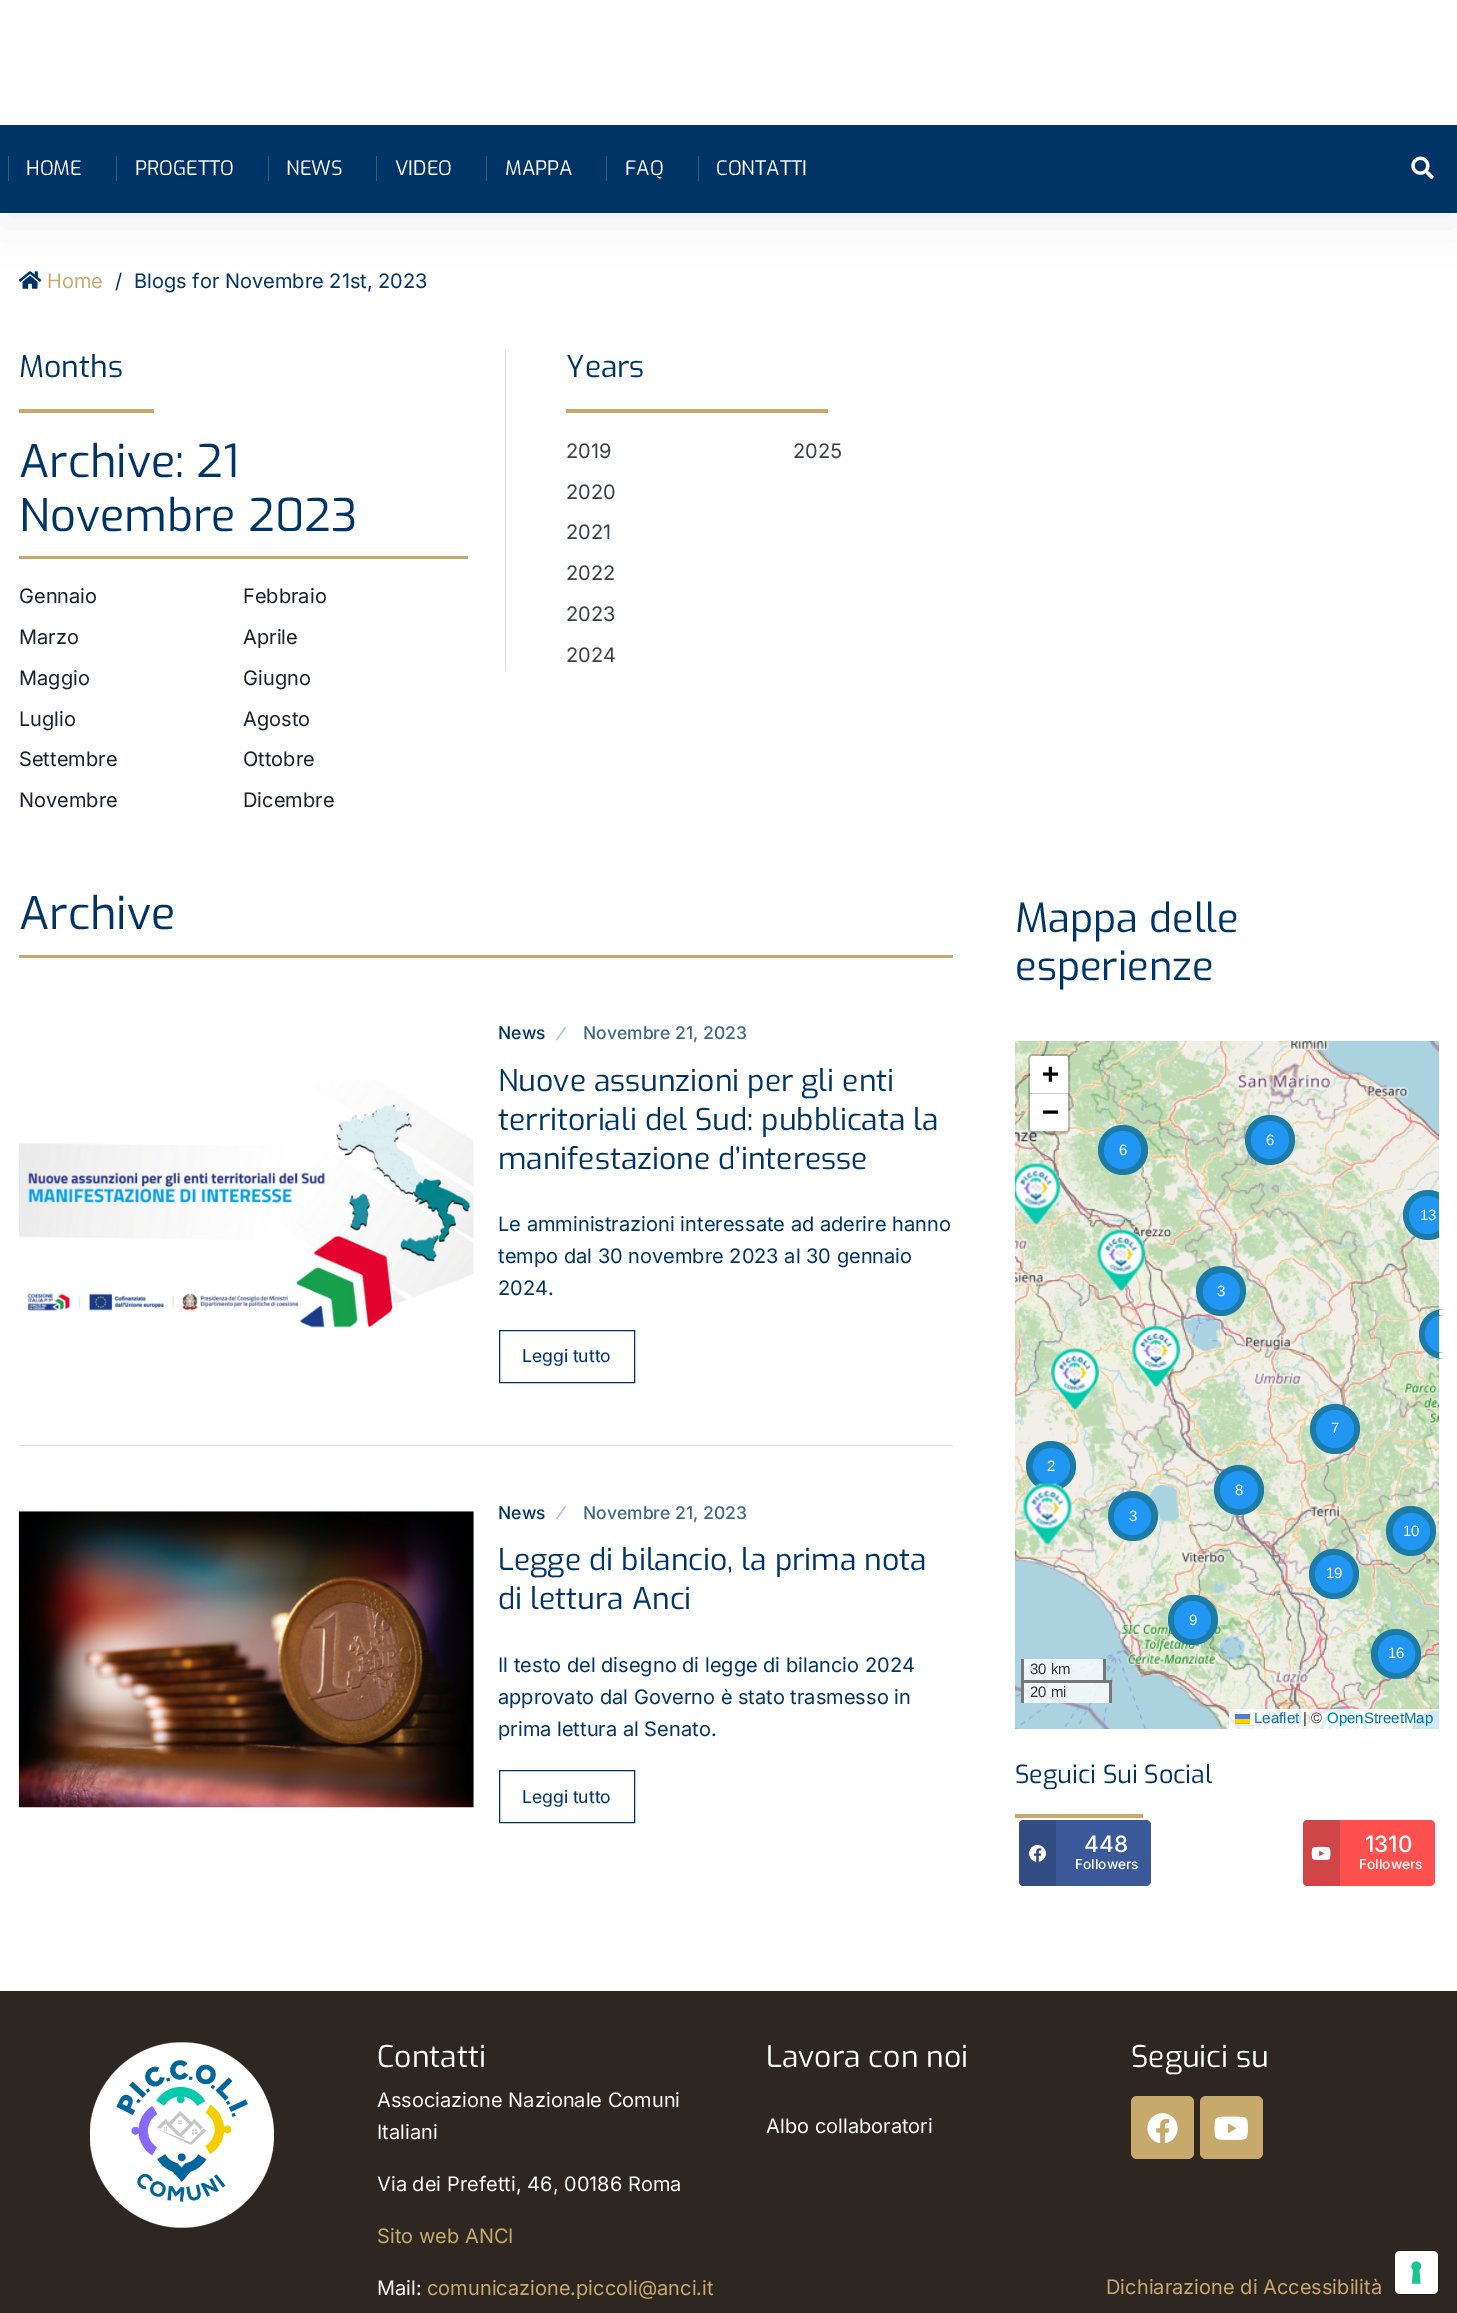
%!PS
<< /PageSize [1457 2313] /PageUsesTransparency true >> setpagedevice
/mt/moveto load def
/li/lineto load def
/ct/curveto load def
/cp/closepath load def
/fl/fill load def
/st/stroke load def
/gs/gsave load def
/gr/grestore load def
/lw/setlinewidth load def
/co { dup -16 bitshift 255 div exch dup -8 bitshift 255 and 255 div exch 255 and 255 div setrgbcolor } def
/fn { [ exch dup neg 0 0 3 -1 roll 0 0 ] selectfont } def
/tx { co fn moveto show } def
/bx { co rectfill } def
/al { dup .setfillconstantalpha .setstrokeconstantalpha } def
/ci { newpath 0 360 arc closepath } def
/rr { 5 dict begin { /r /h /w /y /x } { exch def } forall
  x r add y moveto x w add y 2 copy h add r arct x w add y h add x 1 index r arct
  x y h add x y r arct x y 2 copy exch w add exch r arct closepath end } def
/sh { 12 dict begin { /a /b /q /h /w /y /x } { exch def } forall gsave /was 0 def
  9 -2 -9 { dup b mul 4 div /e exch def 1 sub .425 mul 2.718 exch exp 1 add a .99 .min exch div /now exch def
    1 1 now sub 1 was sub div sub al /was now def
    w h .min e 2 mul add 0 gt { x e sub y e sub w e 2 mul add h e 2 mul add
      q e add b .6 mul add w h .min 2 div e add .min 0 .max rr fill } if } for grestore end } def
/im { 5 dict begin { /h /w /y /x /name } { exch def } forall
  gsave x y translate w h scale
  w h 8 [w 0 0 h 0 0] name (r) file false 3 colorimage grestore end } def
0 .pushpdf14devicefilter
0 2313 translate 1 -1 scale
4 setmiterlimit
0 0 1457 2313 16#FFFFFF bx
(media/2.raw) 18 271 24 18 im
16#17222B co
0 13 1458 212 0 25 .05 sh
0 0 1457 125 16#FFFFFF bx
0 125 1457 88 16#003366 bx
8 156 1 25 16#335C85 bx
116 156 1 25 16#335C85 bx
268 156 1 25 16#335C85 bx
376 156 1 25 16#335C85 bx
486 156 1 25 16#335C85 bx
606 156 1 25 16#335C85 bx
698 156 1 25 16#335C85 bx
(media/1.raw) 1411 156 23 23 im
19 409 135 4 16#C7A96B bx
19 556 449 3 16#C7A96B bx
505 350 1 321 16#DCDEDF bx
566 409 262 4 16#C7A96B bx
19 955 934 3 16#C7A96B bx
19 1445 934 1 16#DEE2E6 bx
(media/3.raw) 19 1080 455 248 im
16#003366 co
499.5 1330.5 135 52 rectstroke
(media/4.raw) 18 1511 456 297 im
499.5 1770.5 135 52 rectstroke
1015 1041 424 674 16#DDDDDD bx
(media/7.raw) 1015 1354 314 321 im
(media/5.raw) 1015 1041 314 314 im
0.2 al
16#000000 co
3 lw
1029.5 1055.5 39 77 3.5 rr st
1 al
16#FFFFFF co
1032.5 1056 mt 1065.5 1056 li 1067 1056 1068 1057 1068 1058.5 ct 1068 1094 li 1030 1094 li 1030 1058.5 li 1030 1057 1031 1056 1032.5 1056 ct cp fl
1030 1093 38 1 16#CCCCCC bx
16#FFFFFF co
1030 1094 mt 1068 1094 li 1068 1128.5 li 1068 1130 1067 1131 1065.5 1131 ct 1032.5 1131 li 1031 1131 1030 1130 1030 1128.5 ct cp fl
(media/9.raw) 1015 1674 314 55 im
0.8 al
1024 1659 79 21 16#FFFFFF bx
1 al
1103 1659 3 24 16#777777 bx
1021 1659 3 24 16#777777 bx
0.8 al
1024 1683 85 20 16#FFFFFF bx
1 al
1021 1680 90 3 16#777777 bx
1109 1680 3 23 16#777777 bx
1021 1680 3 23 16#777777 bx
(media/8.raw) 1329 1355 110 320 im
(media/10.raw) 1329 1674 110 55 im
(media/16.raw) 1319 1708 49 21 im
gs
1015 1041 424 688 rectclip
16#1C7BA7 co
1436 1736 25 ci fl
16#2196F3 co
1436.5 1736.5 18.5 ci fl
gr
0.8 al
1229 1709 210 20 16#FFFFFF bx
1 al
1235 1714 15 5 16#4C7BE1 bx
1235 1719 15 4 16#FFD500 bx
1235 1723 15 1 16#E0BC00 bx
(media/6.raw) 1329 1041 110 314 im
16#1C7BA7 co
1270 1140 25 ci fl
16#2196F3 co
1270 1140 19 ci fl
16#1C7BA7 co
1123 1150 25 ci fl
16#2196F3 co
1104 1131 37 38 18.5 rr fl
(media/11.raw) 1015 1163 46 63 im
gs
1015 1041 424 688 rectclip
16#1C7BA7 co
1428 1215 25 ci fl
16#2196F3 co
1409 1196 37 38 18.5 rr fl
gr
(media/12.raw) 1097 1229 49 63 im
16#1C7BA7 co
1221 1291 25 ci fl
16#2196F3 co
1221.5 1291.5 18.5 ci fl
(media/13.raw) 1051 1348 48 63 im
(media/14.raw) 1132 1326 49 62 im
16#1C7BA7 co
1444 1309 mt 1439 1309 li 1439 1359 li 1444 1359 li 1430 1359 1419 1348 1419 1334 ct 1419 1320 1430 1309 1444 1309 ct cp fl
16#2196F3 co
1444 1315 mt 1439 1315 li 1439 1353 li 1444 1353 li 1433.5 1353 1425 1344.5 1425 1334 ct 1425 1323.5 1433.5 1315 1444 1315 ct cp fl
16#1C7BA7 co
1335 1429 25 ci fl
16#2196F3 co
1335 1429 19 ci fl
16#1C7BA7 co
1051 1466 25 ci fl
16#2196F3 co
1051.5 1466.5 18.5 ci fl
(media/15.raw) 1023 1483 49 63 im
16#1C7BA7 co
1239 1490 25 ci fl
16#2196F3 co
1239 1490 19 ci fl
16#1C7BA7 co
1133 1516 25 ci fl
16#2196F3 co
1132.5 1516.5 18.5 ci fl
16#1C7BA7 co
1411 1531 25 ci fl
16#2196F3 co
1411.5 1531.5 18.5 ci fl
16#1C7BA7 co
1334 1574 25 ci fl
16#2196F3 co
1334 1574 19 ci fl
16#1C7BA7 co
1193 1620 25 ci fl
16#2196F3 co
1174 1601 37 38 18.5 rr fl
16#1C7BA7 co
1396 1654 25 ci fl
16#2196F3 co
1378 1635 37 38 18.5 rr fl
1015 1814 128 4 16#C7A96B bx
16#3B5998 co
1019 1820 132 66 5 rr fl
16#334D82 co
1024 1820 mt 1056 1820 li 1056 1886 li 1024 1886 li 1021 1886 1019 1884 1019 1881 ct 1019 1825 li 1019 1822 1021 1820 1024 1820 ct cp fl
(media/17.raw) 1029 1845 17 17 im
16#FF5050 co
1303 1820 132 66 5 rr fl
16#D04648 co
1308 1820 mt 1340 1820 li 1340 1886 li 1308 1886 li 1305 1886 1303 1884 1303 1881 ct 1303 1825 li 1303 1822 1305 1820 1308 1820 ct cp fl
(media/18.raw) 1311 1846 20 14 im
0 1991 1457 322 16#2D2621 bx
(media/19.raw) 90 2042 184 186 im
16#C7A96B co
1131 2096 63 63 6 rr fl
(media/20.raw) 1147 2113 31 31 im
1200 2096 63 63 6 rr fl
(media/21.raw) 1214 2116 34 24 im
16#26201C co
1 lw
1394.5 2250.5 44 44 5.5 rr st
16#FFFFFF co
1395 2251 43 43 5 rr fl
(media/22.raw) 1411 2261 11 23 im
(HOME) 26 175 /Exo-Regular 20 16#FFFFFF tx
(PROGETTO) 135 175 /Exo-Regular 20 16#FFFFFF tx
(NEWS) 286 175 /Exo-Regular 20 16#FFFFFF tx
(VIDEO) 395 175 /Exo-Regular 20 16#FFFFFF tx
(MAPPA) 505 175 /Exo-Regular 20 16#FFFFFF tx
(FAQ) 625 175 /Exo-Regular 20 16#FFFFFF tx
(CONTATTI) 716 175 /Exo-Regular 20 16#FFFFFF tx
(Home) 47 288 /Inter-Regular 20 16#C7A96B tx
(/) 115 288 /Inter-Regular 20 16#003366 tx
(Blogs for Novembre 21st, 2023) 134 288 /Inter-Regular 20 16#003366 tx
(Months) 19 377 /Exo-Regular 30 16#003366 tx
(Archive: 21) 19 477 /Exo-Regular 45 16#003366 tx
(Novembre 2023) 19 531 /Exo-Regular 45 16#003366 tx
(Gennaio) 19 603 /Inter-Regular 20 16#17222B tx
(Febbraio) 243 603 /Inter-Regular 20 16#17222B tx
(Marzo) 19 644 /Inter-Regular 20 16#17222B tx
(Aprile) 243 644 /Inter-Regular 20 16#17222B tx
(Maggio) 19 685 /Inter-Regular 20 16#17222B tx
(Giugno) 243 685 /Inter-Regular 20 16#17222B tx
(Luglio) 19 726 /Inter-Regular 20 16#17222B tx
(Agosto) 243 726 /Inter-Regular 20 16#17222B tx
(Settembre) 19 766 /Inter-Regular 20 16#17222B tx
(Ottobre) 243 766 /Inter-Regular 20 16#17222B tx
(Novembre) 19 807 /Inter-Regular 20 16#17222B tx
(Dicembre) 243 807 /Inter-Regular 20 16#17222B tx
(Years) 566 377 /Exo-Regular 30 16#003366 tx
(2019) 566 458 /Inter-Regular 20 16#39424A tx
(2020) 566 499 /Inter-Regular 20 16#39424A tx
(2021) 566 539 /Inter-Regular 20 16#39424A tx
(2022) 566 580 /Inter-Regular 20 16#39424A tx
(2023) 566 621 /Inter-Regular 20 16#39424A tx
(2024) 566 662 /Inter-Regular 20 16#39424A tx
(2025) 793 458 /Inter-Regular 20 16#39424A tx
(Archive) 19 929 /Exo-Regular 45 16#003366 tx
(News) 498 1039 /Inter-Medium 17.5 16#003366 tx
16#B3C2D1 co
gs 556 1038 translate 20 rotate 0 0 mt (/) show gr
(Novembre 21, 2023) 583 1039 /Inter-Medium 17.5 16#40668C tx
(Nuove assunzioni per gli enti) 498 1091 /Exo-Regular 30 16#003366 tx
(territoriali del Sud: pubblicata la) 498 1130 /Exo-Regular 30 16#003366 tx
(manifestazione d’interesse) 498 1169 /Exo-Regular 30 16#003366 tx
(Le amministrazioni interessate ad aderire hanno) 498 1231 /Inter-Regular 20 16#003366 tx
(tempo dal 30 novembre 2023 al 30 gennaio) 498 1263 /Inter-Regular 20 16#003366 tx
(2024.) 498 1295 /Inter-Regular 20 16#003366 tx
(Leggi tutto) 522 1362 /Inter-Regular 17.5 16#003366 tx
(News) 498 1519 /Inter-Medium 17.5 16#003366 tx
16#B3C2D1 co
gs 556 1517 translate 20 rotate 0 0 mt (/) show gr
(Novembre 21, 2023) 583 1519 /Inter-Medium 17.5 16#40668C tx
(Legge di bilancio, la prima nota) 498 1570 /Exo-Regular 30 16#003366 tx
(di lettura Anci) 498 1609 /Exo-Regular 30 16#003366 tx
(Il testo del disegno di legge di bilancio 2024) 498 1672 /Inter-Regular 20 16#003366 tx
(approvato dal Governo è stato trasmesso in) 498 1704 /Inter-Regular 20 16#003366 tx
(prima lettura al Senato.) 498 1736 /Inter-Regular 20 16#003366 tx
(Leggi tutto) 522 1803 /Inter-Regular 17.5 16#003366 tx
(Mappa delle) 1015 932 /Exo-Regular 40 16#003366 tx
(esperienze) 1015 980 /Exo-Regular 40 16#003366 tx
(+) 1042 1083 /DejaVuSansMono-Bold 28 16#000000 tx
(−) 1042 1121 /DejaVuSansMono-Bold 28 16#000000 tx
(30 km) 1030 1674 /LiberationSans-Regular 15 16#333333 tx
(20 mi) 1030 1697 /LiberationSans-Regular 15 16#333333 tx
(Leaflet) 1254 1723 /LiberationSans-Regular 15 16#0078A8 tx
(| ©) 1303 1723 /LiberationSans-Regular 15 16#333333 tx
(OpenStreetMap) 1327 1723 /LiberationSans-Regular 15 16#0078A8 tx
(6) 1266 1145 /LiberationSans-Regular 15 16#FFFFFF tx
(6) 1119 1155 /LiberationSans-Regular 15 16#FFFFFF tx
(13) 1420 1220 /LiberationSans-Regular 15 16#FFFFFF tx
(3) 1217 1296 /LiberationSans-Regular 15 16#FFFFFF tx
(7) 1331 1433 /LiberationSans-Regular 15 16#FFFFFF tx
(2) 1047 1471 /LiberationSans-Regular 15 16#FFFFFF tx
(8) 1235 1495 /LiberationSans-Regular 15 16#FFFFFF tx
(3) 1129 1521 /LiberationSans-Regular 15 16#FFFFFF tx
(10) 1403 1536 /LiberationSans-Regular 15 16#FFFFFF tx
(19) 1326 1578 /LiberationSans-Regular 15 16#FFFFFF tx
(9) 1189 1625 /LiberationSans-Regular 15 16#FFFFFF tx
(16) 1388 1658 /LiberationSans-Regular 15 16#FFFFFF tx
(Seguici Sui Social) 1015 1783 /Exo-Regular 25 16#003366 tx
(448) 1084 1852 /Inter-Medium 22.5 16#FFFFFF tx
(Followers) 1075 1869 /Inter-Medium 13.75 16#FFFFFF tx
(1310) 1365 1852 /Inter-Medium 22.5 16#FFFFFF tx
(Followers) 1359 1869 /Inter-Medium 13.75 16#FFFFFF tx
(Contatti) 377 2067 /Exo-Regular 30 16#FFFFFF tx
(Associazione Nazionale Comuni) 377 2107 /Inter-Regular 20 16#FFFFFF tx
(Italiani) 377 2139 /Inter-Regular 20 16#FFFFFF tx
(Via dei Prefetti, 46, 00186 Roma) 377 2191 /Inter-Regular 20 16#FFFFFF tx
(Sito web ANCI) 377 2243 /Inter-Regular 20 16#C7A96B tx
(Mail:) 377 2295 /Inter-Regular 20 16#FFFFFF tx
(comunicazione.piccoli@anci.it) 427 2295 /Inter-Regular 20 16#C7A96B tx
(Lavora con noi) 766 2067 /Exo-Regular 30 16#FFFFFF tx
(Albo collaboratori) 766 2133 /Inter-Regular 20 16#FFFFFF tx
(Seguici su) 1131 2067 /Exo-Regular 30 16#FFFFFF tx
(Dichiarazione di Accessibilità) 1106 2294 /Inter-Regular 20 16#C7A96B tx
.poppdf14devicefilter showpage
